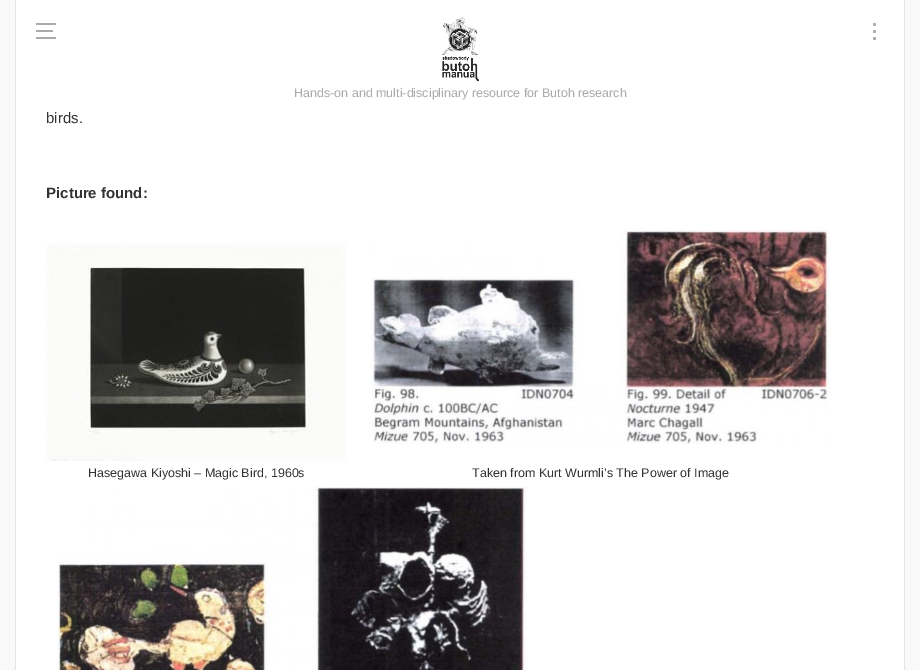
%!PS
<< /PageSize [920 670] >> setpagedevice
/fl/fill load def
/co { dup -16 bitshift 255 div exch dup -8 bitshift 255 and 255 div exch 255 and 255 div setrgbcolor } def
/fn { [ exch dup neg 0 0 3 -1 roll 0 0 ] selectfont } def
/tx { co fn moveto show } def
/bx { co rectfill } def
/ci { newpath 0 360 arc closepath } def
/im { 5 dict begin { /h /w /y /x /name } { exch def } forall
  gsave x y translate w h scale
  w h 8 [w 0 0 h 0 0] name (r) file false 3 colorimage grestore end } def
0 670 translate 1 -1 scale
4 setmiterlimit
0 0 920 670 16#F9F9F9 bx
16 0 888 670 16#FFFFFF bx
(media/1.raw) 442 17 37 65 im
36 23 20 2 16#AAAAAA bx
36 30 17 2 16#AAAAAA bx
36 37 20 2 16#AAAAAA bx
874.5 24.5 1.5 ci fl
874.5 31.5 1.5 ci fl
874.5 38.5 1.5 ci fl
904 0 1 670 16#E5E5E5 bx
15 0 1 670 16#E5E5E5 bx
(media/2.raw) 46 243 300 218 im
(media/3.raw) 371 229 459 215 im
(media/4.raw) 57 487 470 183 im
(Hands-on and multi-disciplinary resource for Butoh research) 294 97 /LiberationSans-Regular 12.5 16#AAAAAA tx
(birds.) 46 123 /LiberationSans-Regular 15 16#333333 tx
(Picture found:) 46 198 /LiberationSans-Bold 15 16#333333 tx
(Hasegawa Kiyoshi – Magic Bird, 1960s) 88 477 /LiberationSans-Regular 12.5 16#333333 tx
(Taken from Kurt Wurmli’s The Power of Image) 472 477 /LiberationSans-Regular 12.5 16#333333 tx
showpage
